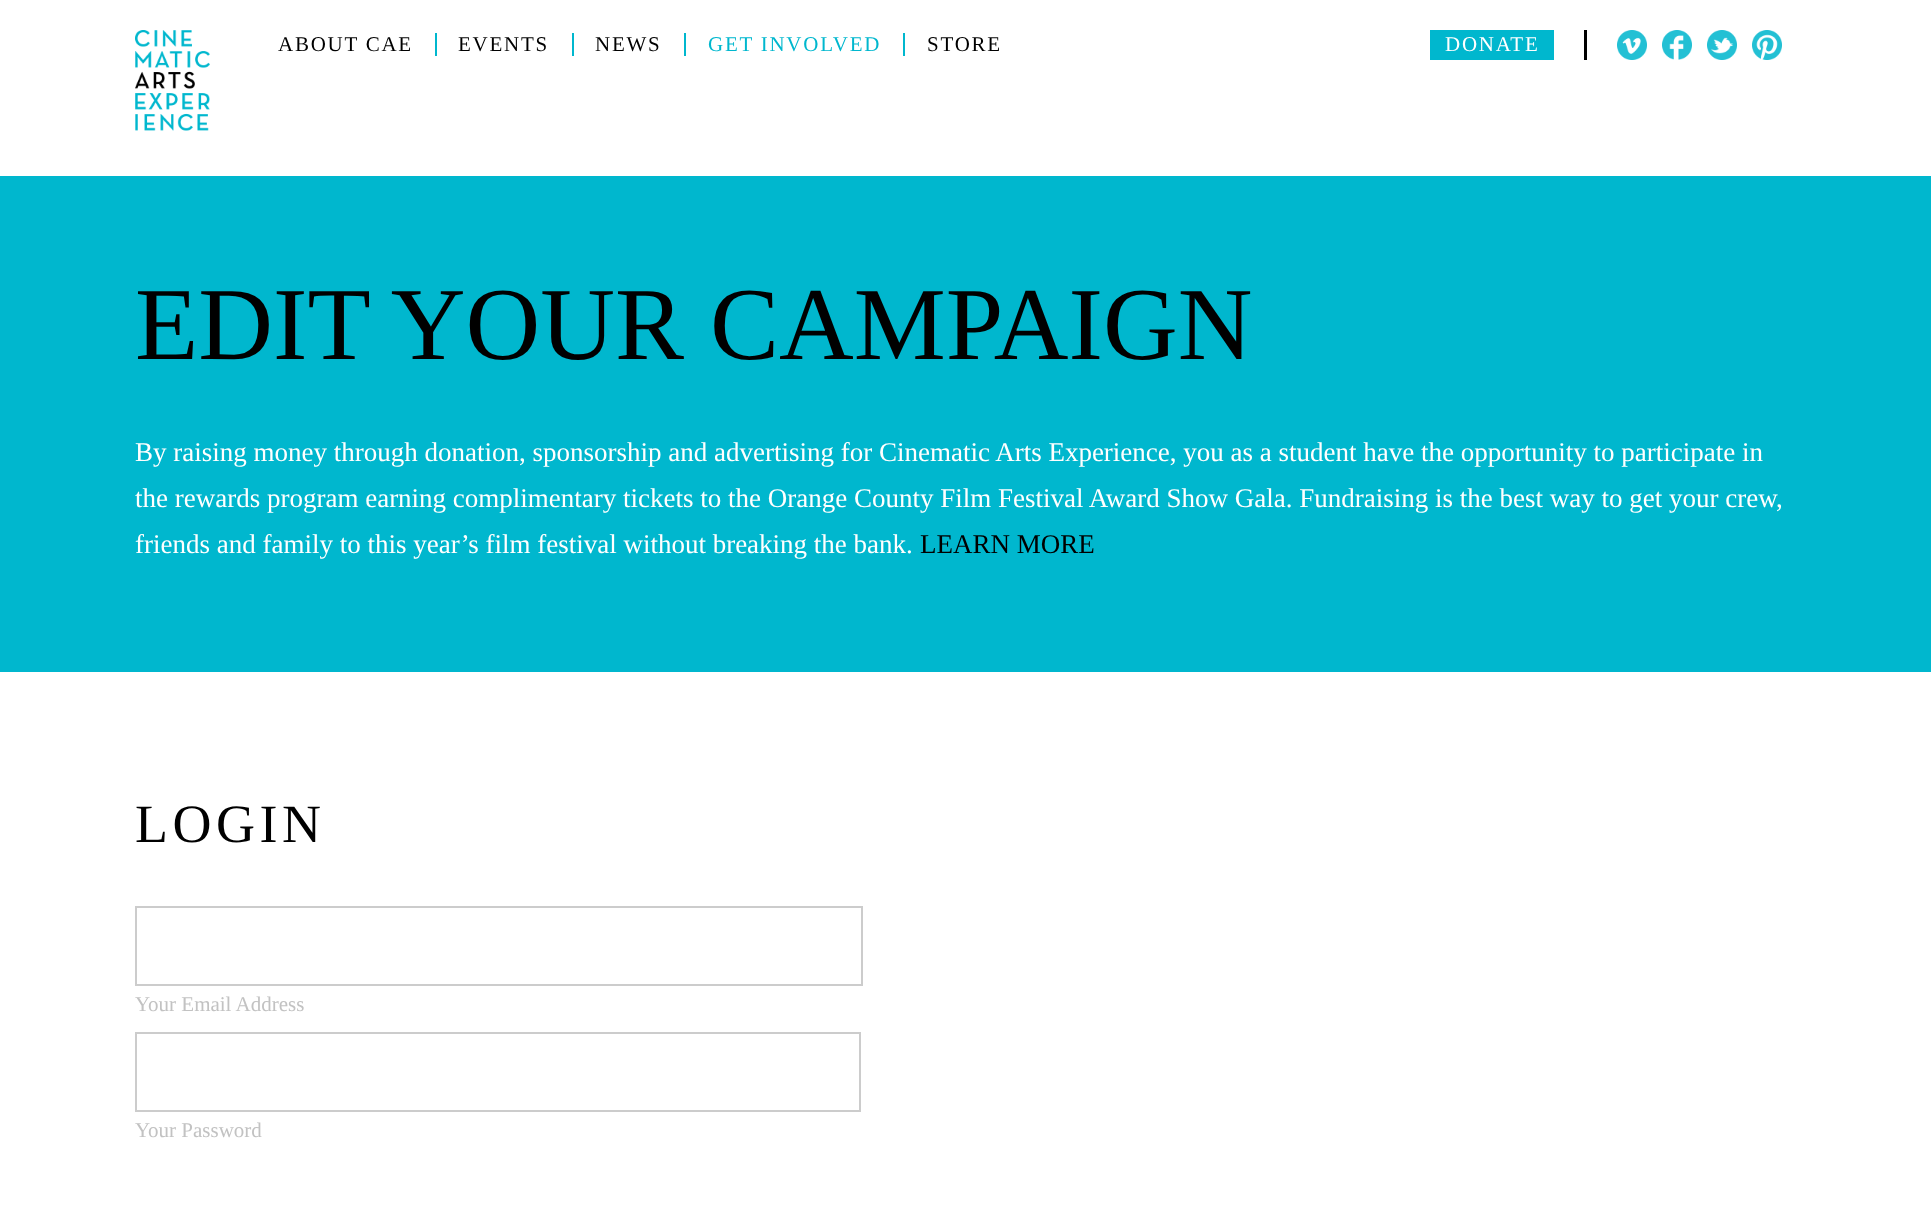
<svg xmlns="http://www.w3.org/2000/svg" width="1931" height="1212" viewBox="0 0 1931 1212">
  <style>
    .t1 { font: 21px Liberation Serif; letter-spacing: 1.75px; fill: #000; }
    .t2 { font: 21px Liberation Serif; letter-spacing: 1.75px; fill: #00b7ce; }
    .t3 { font: 21px Liberation Serif; letter-spacing: 1.75px; fill: #fff; }
    .t4 { font: 103.5px Liberation Serif; fill: #000; }
    .t5 { font: 27px Liberation Serif; fill: #fff; }
    .t6 { font: 27px Liberation Serif; fill: #000; }
    .t7 { font: 54px Liberation Serif; letter-spacing: 4.5px; fill: #000; }
    .t8 { font: 21px Liberation Serif; fill: #c2c2c2; }
  </style>
  <rect width="100%" height="100%" fill="#fff"/>
  <image x="135" y="30" width="75" height="101" href="images/1.png"/>
  <rect x="435" y="33" width="2" height="23" fill="#00b7ce"/>
  <text x="278" y="51" class="t1">ABOUT CAE</text>
  <rect x="572" y="33" width="2" height="23" fill="#00b7ce"/>
  <text x="458" y="51" class="t1">EVENTS</text>
  <rect x="684" y="33" width="2" height="23" fill="#00b7ce"/>
  <text x="595" y="51" class="t1">NEWS</text>
  <rect x="903" y="33" width="2" height="23" fill="#00b7ce"/>
  <text x="708" y="51" class="t2">GET INVOLVED</text>
  <text x="927" y="51" class="t1">STORE</text>
  <rect x="1584" y="30" width="3" height="30" fill="#000"/>
  <rect x="1430" y="30" width="124" height="30" fill="#00b7ce"/>
  <text x="1445" y="51" class="t3">DONATE</text>
  <image x="1617" y="30" width="30" height="30" href="images/2.png"/>
  <image x="1662" y="30" width="30" height="30" href="images/3.png"/>
  <image x="1707" y="30" width="30" height="30" href="images/4.png"/>
  <image x="1752" y="30" width="30" height="30" href="images/5.png"/>
  <rect x="0" y="176" width="1931" height="496" fill="#00b7ce"/>
  <text x="135" y="359" class="t4">EDIT YOUR CAMPAIGN</text>
  <text x="135" y="461" class="t5">By raising money through donation, sponsorship and advertising for Cinematic Arts Experience, you as a student have the opportunity to participate in</text>
  <text x="135" y="507" class="t5">the rewards program earning complimentary tickets to the Orange County Film Festival Award Show Gala. Fundraising is the best way to get your crew,</text>
  <text x="135" y="553" class="t5">friends and family to this year’s film festival without breaking the bank.</text>
  <text x="920" y="553" class="t6">LEARN MORE</text>
  <text x="135" y="842" class="t7">LOGIN</text>
  <rect x="136" y="907" width="726" height="78" fill="none" stroke="#ccc" stroke-width="2"/>
  <text x="135" y="1011" class="t8">Your Email Address</text>
  <rect x="136" y="1033" width="724" height="78" fill="none" stroke="#ccc" stroke-width="2"/>
  <text x="135" y="1137" class="t8">Your Password</text>
</svg>
